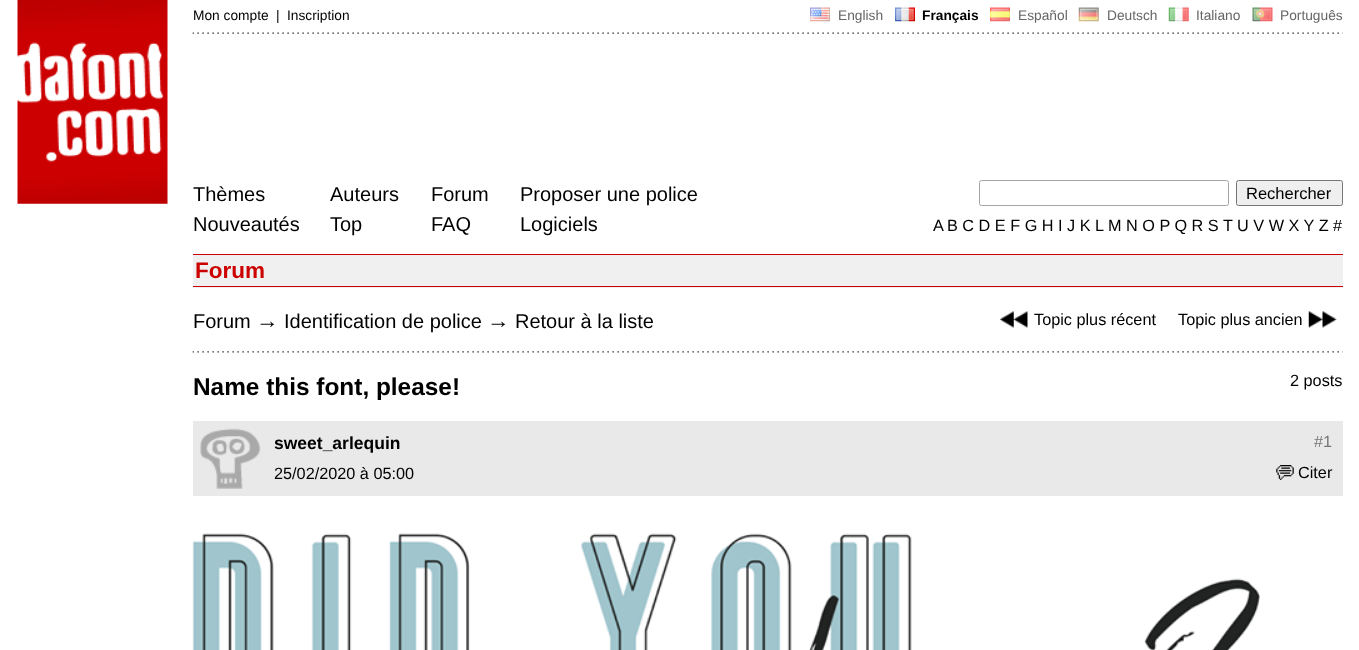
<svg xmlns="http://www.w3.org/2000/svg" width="1359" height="650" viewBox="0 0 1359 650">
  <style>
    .t1 { font: 13.75px Liberation Sans; fill: #000; }
    .t2 { font: 13.75px Liberation Sans; fill: #666; }
    .t3 { font: bold 13.75px Liberation Sans; fill: #000; }
    .t4 { font: 20px Liberation Sans; fill: #000; }
    .t5 { font: 16.5px Liberation Sans; fill: #000; }
    .t6 { font: 16.25px Liberation Sans; fill: #000; }
    .t7 { font: bold 22.5px Liberation Sans; fill: #c00; }
    .t8 { font: 22.5px Liberation Sans; fill: #000; }
    .t9 { font: bold 24.4px Liberation Sans; fill: #000; }
    .t10 { font: bold 17.5px Liberation Sans; fill: #000; }
    .t11 { font: 16.25px Liberation Sans; fill: #777; }
  </style>
  <rect width="100%" height="100%" fill="#fff"/>
  <image x="17" y="0" width="151" height="204" href="images/1.png"/>
  <text x="193" y="20" class="t1">Mon compte</text>
  <text x="276" y="20" class="t1">|</text>
  <text x="287" y="20" class="t1">Inscription</text>
  <image x="810" y="7" width="20" height="15" href="images/2.png"/>
  <text x="838" y="20" class="t2">English</text>
  <image x="895" y="7" width="20" height="15" href="images/3.png"/>
  <text x="922" y="20" class="t3">Français</text>
  <image x="990" y="7" width="20" height="15" href="images/4.png"/>
  <text x="1018" y="20" class="t2">Español</text>
  <image x="1078" y="7" width="21" height="15" href="images/5.png"/>
  <text x="1107" y="20" class="t2">Deutsch</text>
  <image x="1168" y="7" width="21" height="15" href="images/6.png"/>
  <text x="1196" y="20" class="t2">Italiano</text>
  <image x="1252" y="7" width="21" height="15" href="images/7.png"/>
  <text x="1280" y="20" class="t2">Português</text>
  <image x="192" y="32" width="1151" height="2" href="images/8.png"/>
  <text x="193" y="201" class="t4">Thèmes</text>
  <text x="193" y="231" class="t4">Nouveautés</text>
  <text x="330" y="201" class="t4">Auteurs</text>
  <text x="330" y="231" class="t4">Top</text>
  <text x="431" y="201" class="t4">Forum</text>
  <text x="431" y="231" class="t4">FAQ</text>
  <text x="520" y="201" class="t4">Proposer une police</text>
  <text x="520" y="231" class="t4">Logiciels</text>
  <rect x="979.5" y="180.5" width="249" height="25" rx="2" fill="none" stroke="#a4a4a4"/>
  <rect x="1236.5" y="180.5" width="106" height="25" rx="2" fill="#efefef" stroke="#767676"/>
  <text x="1246" y="199" class="t5">Rechercher</text>
  <text x="933" y="231" class="t6">A</text>
  <text x="947" y="231" class="t6">B C D E F G H I J K</text>
  <text x="1095" y="231" class="t6">L M N O P Q R S T U V W X Y Z #</text>
  <rect x="193" y="255" width="1150" height="33" fill="#f0f0f0"/>
  <rect x="193" y="254" width="1150" height="1" fill="#c00"/>
  <rect x="193" y="286" width="1150" height="1" fill="#c00"/>
  <text x="195" y="278" class="t7">Forum</text>
  <text x="193" y="328" class="t4">Forum</text>
  <text x="256" y="328" class="t8">→</text>
  <text x="284" y="328" class="t4">Identification de police</text>
  <text x="487" y="328" class="t8">→</text>
  <text x="515" y="328" class="t4">Retour à la liste</text>
  <image x="999" y="311" width="29" height="17" href="images/9.png"/>
  <text x="1034" y="325" class="t6">Topic plus récent</text>
  <text x="1178" y="325" class="t6">Topic plus ancien</text>
  <image x="1308" y="311" width="29" height="17" href="images/10.png"/>
  <image x="192" y="351" width="1151" height="2" href="images/11.png"/>
  <text x="193" y="395" class="t9">Name this font, please!</text>
  <text x="1290" y="386" class="t6">2 posts</text>
  <rect x="193" y="421" width="1150" height="75" fill="#e9e9e9"/>
  <image x="200" y="428" width="61" height="61" href="images/12.png"/>
  <text x="274" y="449" class="t10">sweet_arlequin</text>
  <text x="1314" y="447" class="t11">#1</text>
  <text x="274" y="479" class="t6">25/02/2020 à 05:00</text>
  <image x="1276" y="465" width="18" height="15" href="images/13.png"/>
  <text x="1298" y="478" class="t6">Citer</text>
  <image x="192" y="533" width="1068" height="117" href="images/14.png"/>
</svg>
